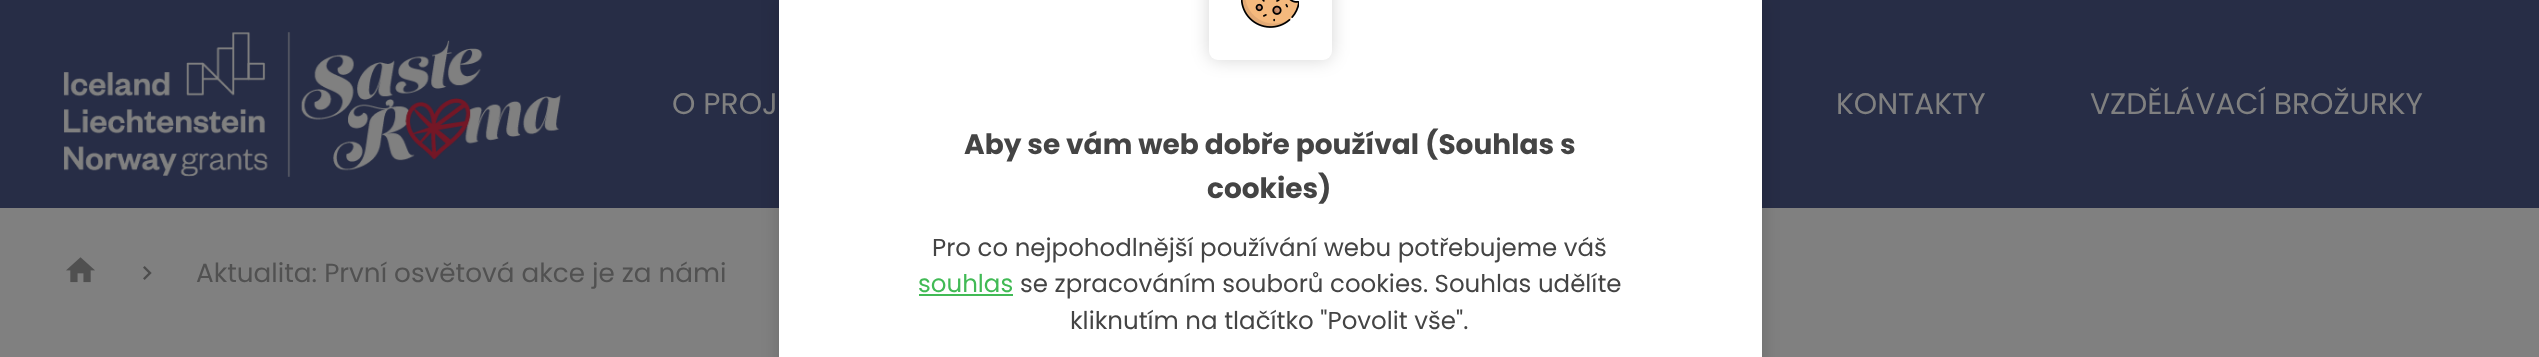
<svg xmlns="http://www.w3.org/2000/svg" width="2539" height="357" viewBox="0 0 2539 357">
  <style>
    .t1 { font: 29.75px Poppins; fill: #808080; }
    .t2 { font: 26.25px Poppins; fill: #515151; }
    .t3 { font: bold 28px Poppins; fill: #444; }
    .t4 { font: 24.5px Poppins; fill: #444; }
    .t5 { font: 24.5px Poppins; fill: #41ba55; }
  </style>
  <rect width="100%" height="100%" fill="#808080"/>
  <rect x="0" y="0" width="2539" height="208" fill="#272d46"/>
  <image x="63" y="32" width="499" height="145" href="images/1.png"/>
  <text x="672" y="114" class="t1">O PROJ</text>
  <text x="1836" y="114" class="t1">KONTAKTY</text>
  <text x="2090" y="114" class="t1">VZDĚLÁVACÍ BROŽURKY</text>
  <image x="66" y="257" width="29" height="26" href="images/2.png"/>
  <image x="143" y="266" width="9" height="14" href="images/3.png"/>
  <text x="196" y="282" class="t2">Aktualita: První osvětová akce je za námi</text>
  <rect x="779" y="0" width="983" height="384" fill="#00000029" filter="blur(9px)"/>
  <rect x="779" y="0" width="983" height="357" fill="#fff"/>
  <rect x="1209" y="-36" width="123" height="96" rx="9" fill="#00000029" filter="blur(9px)"/>
  <rect x="1209" y="-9" width="123" height="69" rx="9" fill="#fff"/>
  <image x="1241" y="0" width="58" height="28" href="images/4.png"/>
  <text x="964" y="154" class="t3">Aby se vám web dobře používal (Souhlas s</text>
  <text x="1207" y="198" class="t3">cookies)</text>
  <text x="932" y="256" class="t4">Pro co nejpohodlnější používání webu potřebujeme váš</text>
  <text x="918" y="292" class="t5">souhlas</text>
  <rect x="919" y="294" width="94" height="2" fill="#41ba55"/>
  <text x="1020" y="292" class="t4">se zpracováním souborů cookies. Souhlas udělíte</text>
  <text x="1070" y="329" class="t4">kliknutím na tlačítko "Povolit vše".</text>
</svg>
